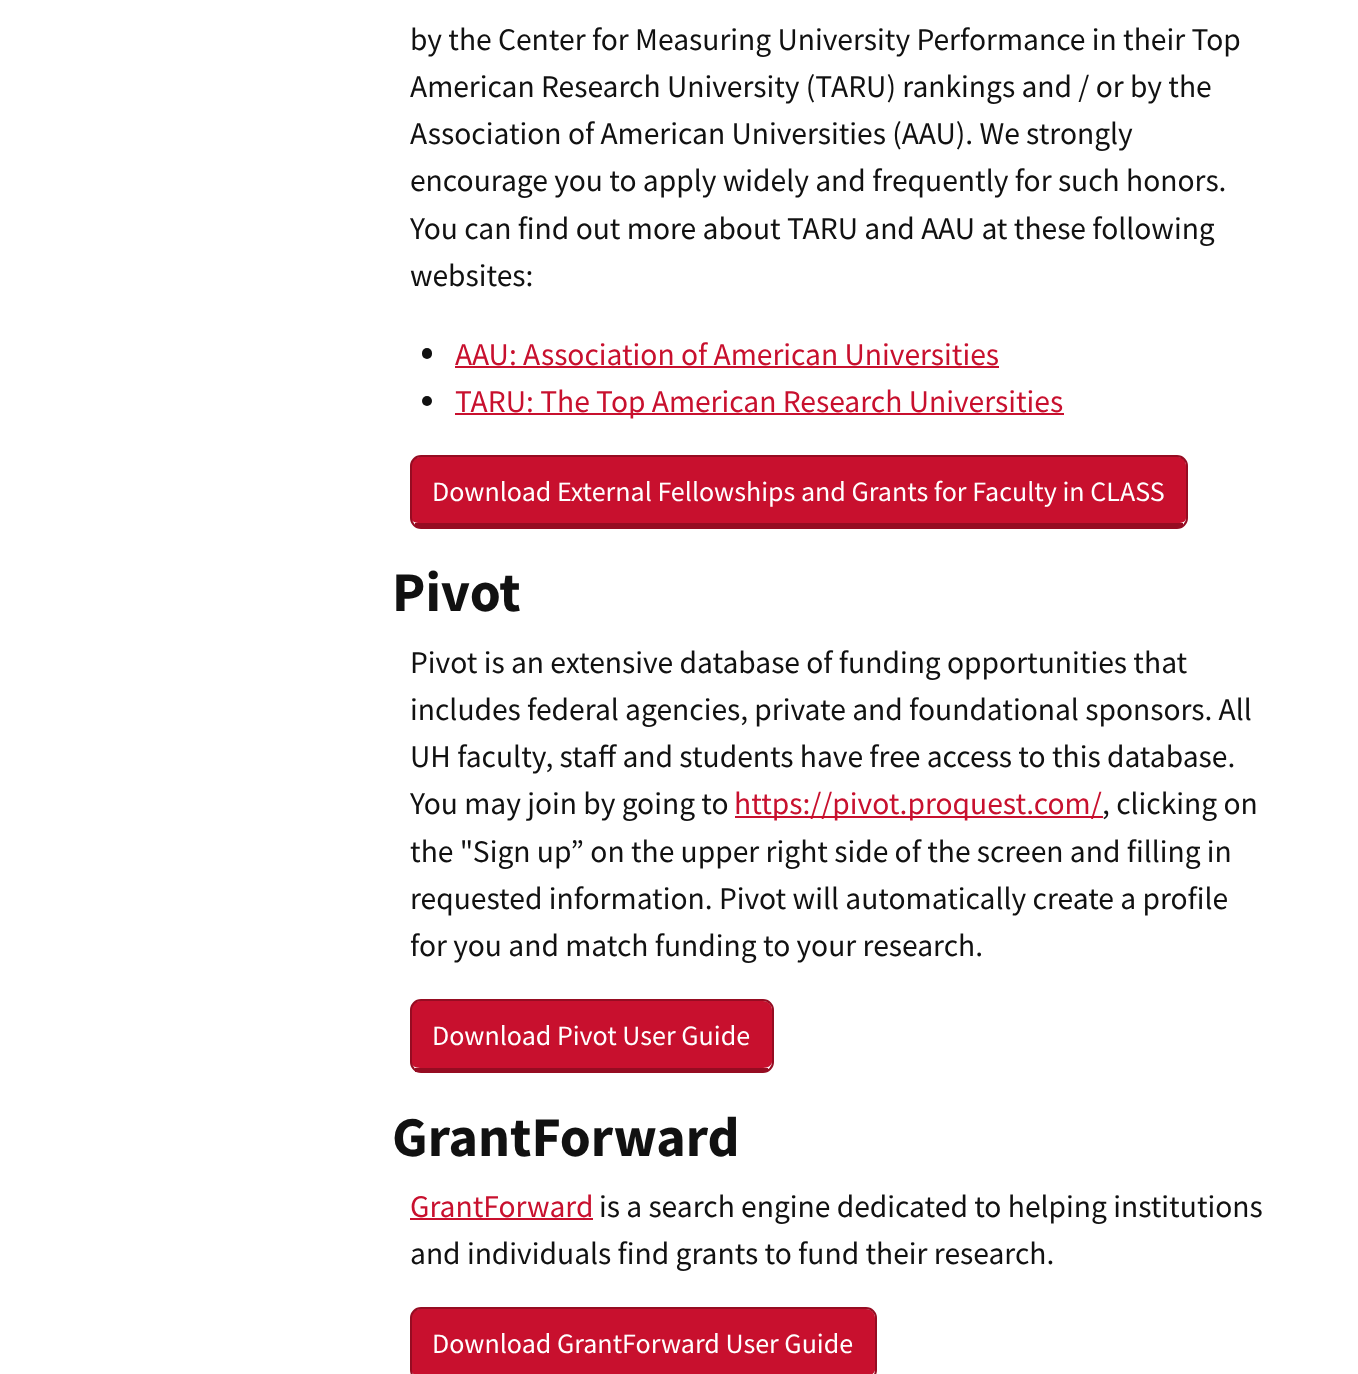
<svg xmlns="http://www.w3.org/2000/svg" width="1358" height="1374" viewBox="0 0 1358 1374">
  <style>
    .t1 { font: 31.5px Source Sans Pro; fill: #111; }
    .t2 { font: 31.5px Source Sans Pro; fill: #c8102e; }
    .t3 { font: 28px Source Sans Pro; fill: #fff; }
    .t4 { font: bold 56px Source Sans Pro; fill: #111; }
  </style>
  <rect width="100%" height="100%" fill="#fff"/>
  <text x="410" y="50" class="t1">by the Center for Measuring University Performance in their Top</text>
  <text x="410" y="97" class="t1">American Research University (TARU) rankings and / or by the</text>
  <text x="410" y="144" class="t1">Association of American Universities (AAU). We strongly</text>
  <text x="410" y="191" class="t1">encourage you to apply widely and frequently for such honors.</text>
  <text x="410" y="239" class="t1">You can find out more about TARU and AAU at these following</text>
  <text x="410" y="286" class="t1">websites:</text>
  <rect x="422" y="348" width="10" height="11" rx="5" fill="#111"/>
  <text x="455" y="365" class="t2">AAU: Association of American Universities</text>
  <rect x="455" y="366" width="544" height="2" fill="#c8102e"/>
  <circle cx="427" cy="401" r="5" fill="#111"/>
  <rect x="455" y="413" width="609" height="2" fill="#c8102e"/>
  <text x="455" y="412" class="t2">TARU: The Top American Research Universities</text>
  <path d="M420 457H1178C1183 457 1186 461 1186 466V518C1186 521 1183 523 1178 523H420C415 523 411 521 411 518V466C411 461 415 457 420 457Z" fill="#c8102e"/>
  <rect x="411" y="456" width="776" height="72" rx="10" fill="none" stroke="#960c22" stroke-width="2"/>
  <rect x="415" y="523" width="768" height="4" fill="#960c22"/>
  <text x="432" y="501" class="t3">Download External Fellowships and Grants for Faculty in CLASS</text>
  <text x="392" y="611" class="t4">Pivot</text>
  <text x="410" y="673" class="t1">Pivot is an extensive database of funding opportunities that</text>
  <text x="410" y="720" class="t1">includes federal agencies, private and foundational sponsors. All</text>
  <text x="410" y="767" class="t1">UH faculty, staff and students have free access to this database.</text>
  <text x="410" y="814" class="t1">You may join by going to</text>
  <rect x="735" y="816" width="368" height="2" fill="#c8102e"/>
  <text x="734" y="814" class="t2">https://pivot.proquest.com/</text>
  <text x="1102" y="814" class="t1">, clicking on</text>
  <text x="410" y="862" class="t1">the "Sign up” on the upper right side of the screen and filling in</text>
  <text x="410" y="909" class="t1">requested information. Pivot will automatically create a profile</text>
  <text x="410" y="956" class="t1">for you and match funding to your research.</text>
  <path d="M420 1001H763C768 1001 772 1005 772 1010V1062C772 1065 768 1068 763 1068H420C415 1068 411 1065 411 1062V1010C411 1005 415 1001 420 1001Z" fill="#c8102e"/>
  <rect x="411" y="1000" width="362" height="72" rx="10" fill="none" stroke="#960c22" stroke-width="2"/>
  <rect x="415" y="1068" width="353" height="4" fill="#960c22"/>
  <text x="432" y="1045" class="t3">Download Pivot User Guide</text>
  <text x="392" y="1156" class="t4">GrantForward</text>
  <text x="410" y="1217" class="t2">GrantForward</text>
  <rect x="410" y="1218" width="183" height="2" fill="#c8102e"/>
  <text x="599" y="1217" class="t1">is a search engine dedicated to helping institutions</text>
  <text x="410" y="1264" class="t1">and individuals find grants to fund their research.</text>
  <path d="M420 1309H866C871 1309 875 1313 875 1318V1370C875 1373 871 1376 866 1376H420C415 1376 411 1373 411 1370V1318C411 1313 415 1309 420 1309Z" fill="#c8102e"/>
  <rect x="411" y="1308" width="465" height="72" rx="10" fill="none" stroke="#960c22" stroke-width="2"/>
  <text x="432" y="1353" class="t3">Download GrantForward User Guide</text>
</svg>
